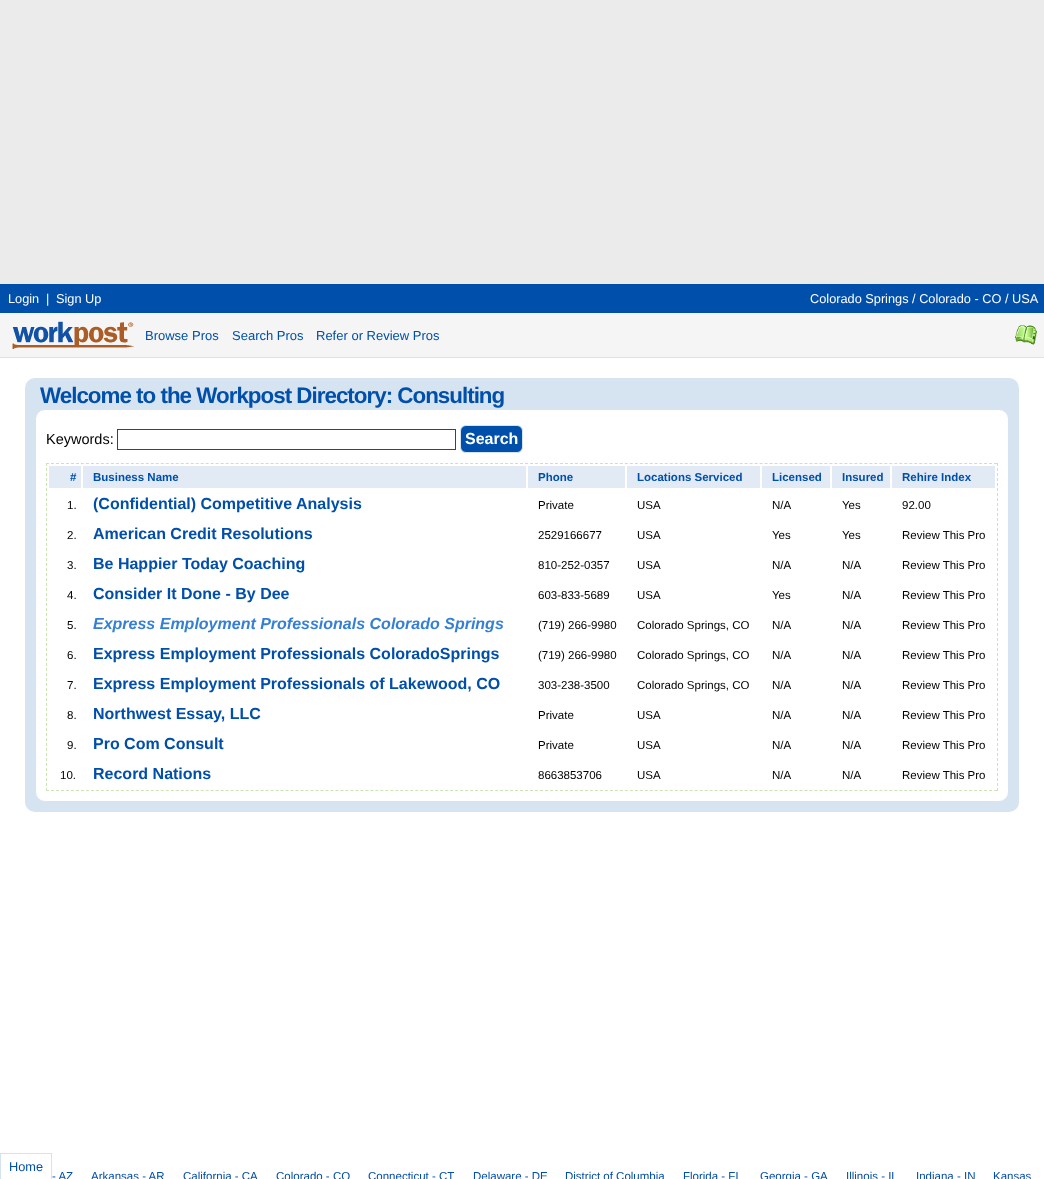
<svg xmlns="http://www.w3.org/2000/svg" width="1044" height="1179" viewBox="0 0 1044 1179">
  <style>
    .t1 { font: 12.75px Liberation Sans; fill: #fff; }
    .t2 { font: 13px Liberation Sans; fill: #004faa; }
    .t3 { font: bold 22.4px Liberation Sans; letter-spacing: -1px; fill: #004faa; }
    .t4 { font: 14.5px Liberation Sans; fill: #000; }
    .t5 { font: bold 16px Liberation Sans; fill: #fff; }
    .t6 { font: bold 11.5px Liberation Sans; fill: #004faa; }
    .t7 { font: 11.5px Liberation Sans; fill: #000; }
    .t8 { font: bold 16px Liberation Sans; fill: #004faa; }
    .t9 { font: italic bold 16px Liberation Sans; fill: #3580d5; }
    .t10 { font: 12.75px Liberation Sans; fill: #004faa; }
    .t11 { font: 11.5px Liberation Sans; fill: #004faa; }
  </style>
  <rect width="100%" height="100%" fill="#fff"/>
  <rect x="0" y="0" width="1044" height="284" fill="#ebebeb"/>
  <rect x="0" y="284" width="1044" height="29" fill="#004faa"/>
  <text x="8" y="303" class="t1">Login</text>
  <text x="46" y="303" class="t1">|</text>
  <text x="56" y="303" class="t1">Sign Up</text>
  <text x="810" y="303" class="t1">Colorado Springs / Colorado - CO / USA</text>
  <rect x="0" y="313" width="1044" height="44" fill="#f5f5f5"/>
  <rect x="0" y="357" width="1044" height="1" fill="#d6e3f1"/>
  <image x="12" y="321" width="122" height="28" href="images/1.png"/>
  <text x="145" y="340" class="t2">Browse Pros</text>
  <text x="232" y="340" class="t2">Search Pros</text>
  <text x="316" y="340" class="t2">Refer or Review Pros</text>
  <image x="1015" y="325" width="22" height="20" href="images/2.png"/>
  <rect x="30" y="383" width="984" height="424" rx="5" fill="#d6e3f1" stroke="#d6e3f1" stroke-width="10"/>
  <text x="40" y="403" class="t3">Welcome to the Workpost Directory: Consulting</text>
  <rect x="35.5" y="409.5" width="973" height="392" rx="9.5" fill="#fff" stroke="#d6e3f1"/>
  <text x="46" y="444" class="t4">Keywords:</text>
  <rect x="117.5" y="429.5" width="338" height="20" fill="none" stroke="#004faa"/>
  <rect x="460.5" y="425.5" width="62" height="27" rx="5.5" fill="#004faa" stroke="#d6e3f1"/>
  <text x="465" y="444" class="t5">Search</text>
  <path d="M46 463.5H998" fill="none" stroke="#cae5b3" stroke-dasharray="3 1.99"/>
  <path d="M997.5 463V791" fill="none" stroke="#cae5b3" stroke-dasharray="3 2"/>
  <path d="M46 790.5H998" fill="none" stroke="#cae5b3" stroke-dasharray="3 1.99"/>
  <path d="M46.5 463V791" fill="none" stroke="#cae5b3" stroke-dasharray="3 2"/>
  <rect x="49" y="466" width="32" height="22" fill="#e1eaf5"/>
  <text x="70" y="481" class="t6">#</text>
  <rect x="83" y="466" width="443" height="22" fill="#e1eaf5"/>
  <text x="93" y="481" class="t6">Business Name</text>
  <rect x="528" y="466" width="97" height="22" fill="#e1eaf5"/>
  <text x="538" y="481" class="t6">Phone</text>
  <rect x="627" y="466" width="133" height="22" fill="#e1eaf5"/>
  <text x="637" y="481" class="t6">Locations Serviced</text>
  <rect x="762" y="466" width="68" height="22" fill="#e1eaf5"/>
  <text x="772" y="481" class="t6">Licensed</text>
  <rect x="832" y="466" width="58" height="22" fill="#e1eaf5"/>
  <text x="842" y="481" class="t6">Insured</text>
  <rect x="892" y="466" width="103" height="22" fill="#e1eaf5"/>
  <text x="902" y="481" class="t6">Rehire Index</text>
  <text x="67" y="509" class="t7">1.</text>
  <text x="93" y="509" class="t8">(Confidential) Competitive Analysis</text>
  <text x="538" y="509" class="t7">Private</text>
  <text x="637" y="509" class="t7">USA</text>
  <text x="772" y="509" class="t7">N/A</text>
  <text x="842" y="509" class="t7">Yes</text>
  <text x="902" y="509" class="t7">92.00</text>
  <text x="67" y="539" class="t7">2.</text>
  <text x="93" y="539" class="t8">American Credit Resolutions</text>
  <text x="538" y="539" class="t7">2529166677</text>
  <text x="637" y="539" class="t7">USA</text>
  <text x="772" y="539" class="t7">Yes</text>
  <text x="842" y="539" class="t7">Yes</text>
  <text x="902" y="539" class="t7">Review This Pro</text>
  <text x="67" y="569" class="t7">3.</text>
  <text x="93" y="569" class="t8">Be Happier Today Coaching</text>
  <text x="538" y="569" class="t7">810-252-0357</text>
  <text x="637" y="569" class="t7">USA</text>
  <text x="772" y="569" class="t7">N/A</text>
  <text x="842" y="569" class="t7">N/A</text>
  <text x="902" y="569" class="t7">Review This Pro</text>
  <text x="67" y="599" class="t7">4.</text>
  <text x="93" y="599" class="t8">Consider It Done - By Dee</text>
  <text x="538" y="599" class="t7">603-833-5689</text>
  <text x="637" y="599" class="t7">USA</text>
  <text x="772" y="599" class="t7">Yes</text>
  <text x="842" y="599" class="t7">N/A</text>
  <text x="902" y="599" class="t7">Review This Pro</text>
  <text x="67" y="629" class="t7">5.</text>
  <text x="93" y="629" class="t9">Express Employment Professionals Colorado Springs</text>
  <text x="538" y="629" class="t7">(719) 266-9980</text>
  <text x="637" y="629" class="t7">Colorado Springs, CO</text>
  <text x="772" y="629" class="t7">N/A</text>
  <text x="842" y="629" class="t7">N/A</text>
  <text x="902" y="629" class="t7">Review This Pro</text>
  <text x="67" y="659" class="t7">6.</text>
  <text x="93" y="659" class="t8">Express Employment Professionals ColoradoSprings</text>
  <text x="538" y="659" class="t7">(719) 266-9980</text>
  <text x="637" y="659" class="t7">Colorado Springs, CO</text>
  <text x="772" y="659" class="t7">N/A</text>
  <text x="842" y="659" class="t7">N/A</text>
  <text x="902" y="659" class="t7">Review This Pro</text>
  <text x="67" y="689" class="t7">7.</text>
  <text x="93" y="689" class="t8">Express Employment Professionals of Lakewood, CO</text>
  <text x="538" y="689" class="t7">303-238-3500</text>
  <text x="637" y="689" class="t7">Colorado Springs, CO</text>
  <text x="772" y="689" class="t7">N/A</text>
  <text x="842" y="689" class="t7">N/A</text>
  <text x="902" y="689" class="t7">Review This Pro</text>
  <text x="67" y="719" class="t7">8.</text>
  <text x="93" y="719" class="t8">Northwest Essay, LLC</text>
  <text x="538" y="719" class="t7">Private</text>
  <text x="637" y="719" class="t7">USA</text>
  <text x="772" y="719" class="t7">N/A</text>
  <text x="842" y="719" class="t7">N/A</text>
  <text x="902" y="719" class="t7">Review This Pro</text>
  <text x="67" y="749" class="t7">9.</text>
  <text x="93" y="749" class="t8">Pro Com Consult</text>
  <text x="538" y="749" class="t7">Private</text>
  <text x="637" y="749" class="t7">USA</text>
  <text x="772" y="749" class="t7">N/A</text>
  <text x="842" y="749" class="t7">N/A</text>
  <text x="902" y="749" class="t7">Review This Pro</text>
  <text x="60" y="779" class="t7">10.</text>
  <text x="93" y="779" class="t8">Record Nations</text>
  <text x="538" y="779" class="t7">8663853706</text>
  <text x="637" y="779" class="t7">USA</text>
  <text x="772" y="779" class="t7">N/A</text>
  <text x="842" y="779" class="t7">N/A</text>
  <text x="902" y="779" class="t7">Review This Pro</text>
  <rect x="0" y="1153" width="52" height="1" fill="#d6e3f1"/>
  <rect x="51" y="1153" width="1" height="26" fill="#d6e3f1"/>
  <rect x="0" y="1153" width="1" height="26" fill="#d6e3f1"/>
  <text x="9" y="1171" class="t10">Home</text>
  <text x="52" y="1180" class="t11">- AZ</text>
  <text x="91" y="1180" class="t11">Arkansas - AR</text>
  <text x="183" y="1180" class="t11">California - CA</text>
  <text x="276" y="1180" class="t11">Colorado - CO</text>
  <text x="368" y="1180" class="t11">Connecticut - CT</text>
  <text x="473" y="1180" class="t11">Delaware - DE</text>
  <text x="565" y="1180" class="t11">District of Columbia</text>
  <text x="683" y="1180" class="t11">Florida - FL</text>
  <text x="760" y="1180" class="t11">Georgia - GA</text>
  <text x="846" y="1180" class="t11">Illinois - IL</text>
  <text x="916" y="1180" class="t11">Indiana - IN</text>
  <text x="993" y="1180" class="t11">Kansas</text>
</svg>
